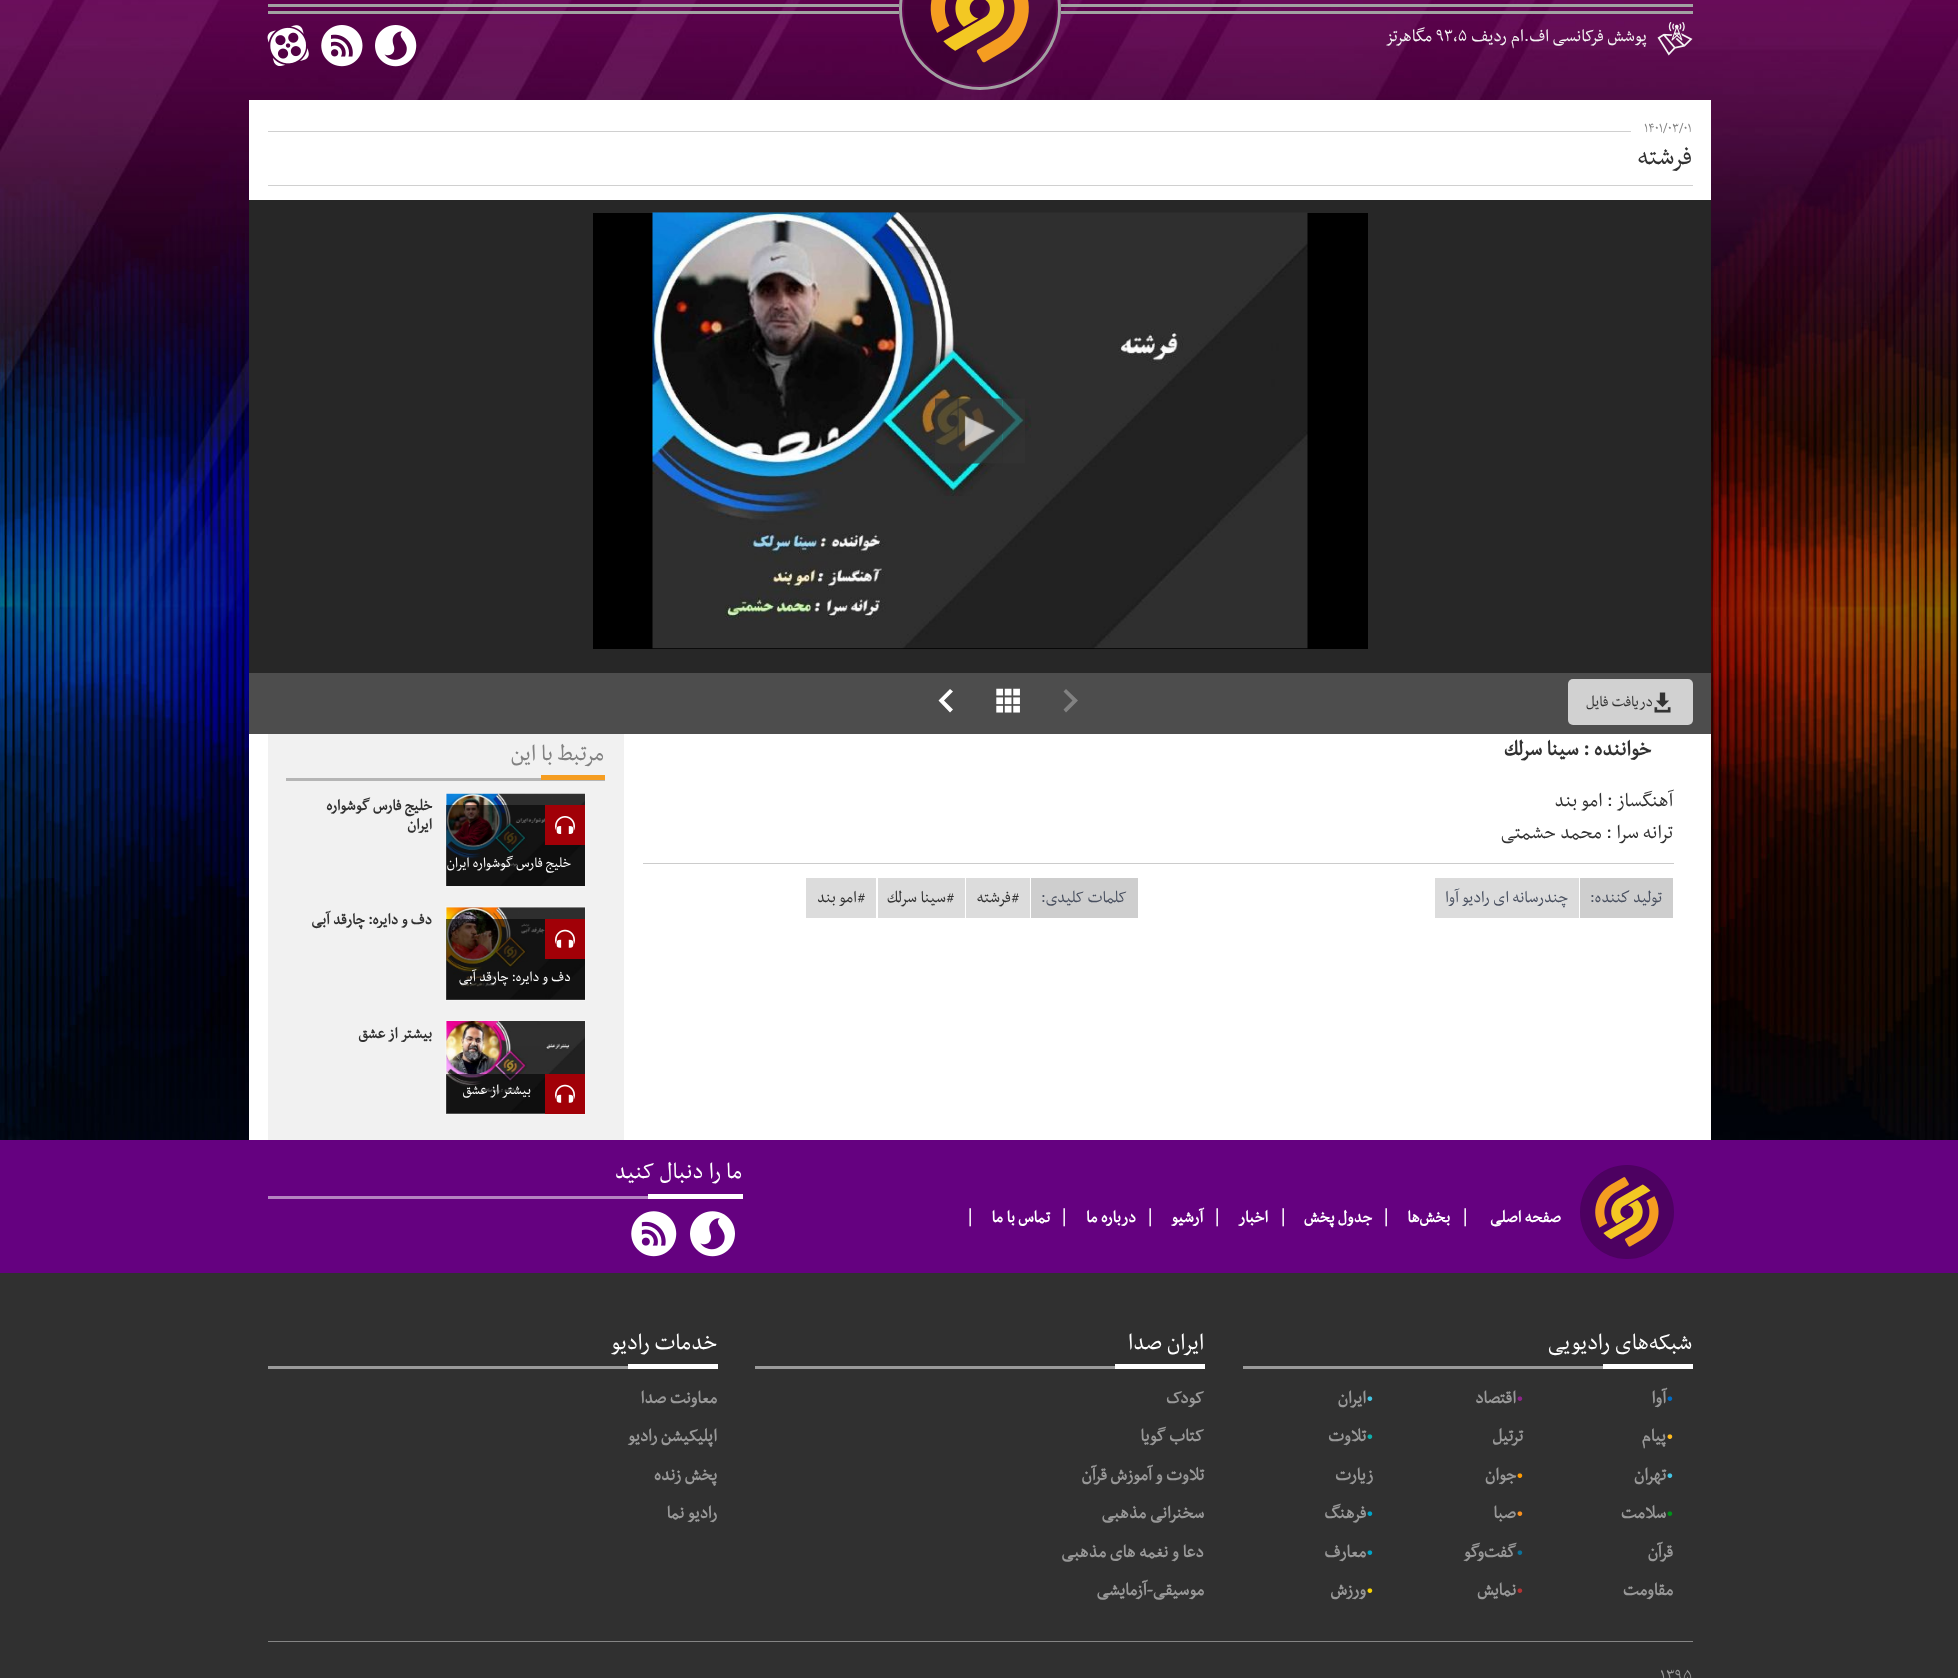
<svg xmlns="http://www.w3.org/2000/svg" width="1958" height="1678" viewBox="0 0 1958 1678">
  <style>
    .t1 { font: 20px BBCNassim; direction: rtl; fill: #f5f5f5; }
    .t2 { font: 20px BBCNassim; fill: #f5f5f5; }
    .t3 { font: 15px BBCNassim; fill: #818181; }
    .t4 { font: 30px BBCNassim; direction: rtl; fill: #313131; }
    .t5 { font: 17.5px BBCNassim; direction: rtl; fill: #313131; }
    .t6 { font: bold 23.75px BBCNassim; direction: rtl; fill: #313131; }
    .t7 { font: 22.5px BBCNassim; direction: rtl; fill: #313131; }
    .t8 { font: 18.75px BBCNassim; direction: rtl; fill: #484f5f; }
    .t9 { font: 18.75px BBCNassim; direction: rtl; fill: #313131; }
    .t10 { font: 26.25px BBCNassim; direction: rtl; fill: #818181; }
    .t11 { font: bold 17.5px BBCNassim; direction: rtl; fill: #313131; }
    .t12 { font: 16.25px BBCNassim; direction: rtl; fill: #fff; }
    .t13 { font: 26.25px BBCNassim; direction: rtl; fill: #fff; }
    .t14 { font: bold 18.75px BBCNassim; direction: rtl; fill: #fff; }
    .t15 { font: bold 20px Liberation Serif; fill: #fff; }
    .t16 { font: 20px BBCNassim; fill: #006cc7; }
    .t17 { font: bold 20px BBCNassim; direction: rtl; fill: #989898; }
    .t18 { font: 20px BBCNassim; fill: #8d258a; }
    .t19 { font: 20px BBCNassim; fill: #44c4e3; }
    .t20 { font: 20px BBCNassim; fill: #ffbb1e; }
    .t21 { font: 20px BBCNassim; fill: #0eaeaa; }
    .t22 { font: 20px BBCNassim; fill: #ff9b02; }
    .t23 { font: 20px BBCNassim; fill: #00911a; }
    .t24 { font: 20px BBCNassim; fill: #f78f1e; }
    .t25 { font: 20px BBCNassim; fill: #00a4c7; }
    .t26 { font: 20px BBCNassim; fill: #0c729a; }
    .t27 { font: 20px BBCNassim; fill: #b23434; }
    .t28 { font: 20px BBCNassim; fill: #f6d104; }
    .t29 { font: 20px BBCNassim; fill: #989898; }
  </style>
  <defs>
    <clipPath id="clip1"><rect x="463" y="1074" width="82" height="29"/></clipPath>
  </defs>
  <rect width="100%" height="100%" fill="#fff"/>
  <image x="0" y="0" width="1958" height="1140" href="images/1.png"/>
  <rect x="1061" y="4" width="632" height="3" fill="#a2a2a2"/>
  <rect x="1061" y="11" width="632" height="3" fill="#a2a2a2"/>
  <circle cx="980" cy="9" r="79.5" fill="none" stroke="#a2a2a2fc" stroke-width="3"/>
  <circle cx="980" cy="9" r="76" fill="#0000003b"/>
  <image x="930" y="0" width="99" height="63" href="images/2.png"/>
  <rect x="268" y="4" width="631" height="3" fill="#a2a2a2"/>
  <rect x="268" y="11" width="631" height="3" fill="#a2a2a2"/>
  <image x="1657" y="22" width="36" height="34" href="images/3.png"/>
  <text x="1647" y="41" class="t1">پوشش فرکانسی</text>
  <text x="1549" y="41" class="t1">اف.ام رديف</text>
  <text x="1436" y="41" class="t2">۹۳,۵</text>
  <text x="1432" y="41" class="t1">مگاهرتز</text>
  <image x="375" y="25" width="42" height="42" href="images/4.png"/>
  <image x="321" y="25" width="42" height="42" href="images/5.png"/>
  <image x="267" y="25" width="42" height="41" href="images/6.png"/>
  <rect x="249" y="100" width="1462" height="1040" fill="#fff"/>
  <text x="1644" y="132" class="t3">۱۴۰۱/۰۳/۰۱</text>
  <rect x="268" y="131" width="1363" height="1" fill="#d0d0d0"/>
  <text x="1692" y="164" class="t4">فرشته</text>
  <rect x="268" y="185" width="1425" height="1" fill="#d0d0d0"/>
  <rect x="249" y="200" width="1462" height="473" fill="#272727"/>
  <rect x="593" y="213" width="775" height="436" fill="#000"/>
  <image x="652" y="212" width="656" height="437" href="images/7.png"/>
  <image x="935" y="398" width="90" height="66" href="images/8.png"/>
  <image x="964" y="415" width="31" height="32" href="images/9.png"/>
  <rect x="249" y="673" width="1462" height="61" fill="#4d4d4d"/>
  <rect x="1568" y="679" width="125" height="46" rx="5" fill="#d1d1d1"/>
  <image x="1654" y="692" width="17" height="21" href="images/10.png"/>
  <text x="1653" y="706" class="t5">دریافت فایل</text>
  <path d="M1066 689L1063.5 691.5L1072.5 700.5L1063.5 709.5L1066 712.5L1078 700.5Z" fill="#828282"/>
  <image x="996" y="688" width="24" height="25" href="images/11.png"/>
  <path d="M950 712.5L953 709.5L944 700.5L953 691.5L950 689L938.5 700.5Z" fill="#fff"/>
  <text x="1651" y="755" class="t6">خواننده : سینا سرلك</text>
  <text x="1673" y="806" class="t7">آهنگساز : امو بند</text>
  <text x="1673" y="838" class="t7">ترانه سرا : محمد حشمتی</text>
  <rect x="643" y="863" width="1031" height="1" fill="#ccc"/>
  <rect x="1580" y="878" width="93" height="40" fill="#cecece"/>
  <text x="1662" y="902" class="t8">تولید كننده:</text>
  <rect x="1435" y="878" width="144" height="40" fill="#dcdcdc"/>
  <text x="1568" y="902" class="t8">چندرسانه ای رادیو آوا</text>
  <rect x="1031" y="878" width="107" height="40" fill="#cecece"/>
  <text x="1127" y="902" class="t8">کلمات کلیدی:</text>
  <rect x="966" y="878" width="64" height="40" fill="#dcdcdc"/>
  <text x="1020" y="902" class="t9">#فرشته</text>
  <rect x="878" y="878" width="87" height="40" fill="#dcdcdc"/>
  <text x="955" y="902" class="t9">#سینا سرلك</text>
  <rect x="806" y="878" width="70" height="40" fill="#dcdcdc"/>
  <text x="866" y="902" class="t9">#امو بند</text>
  <rect x="268" y="734" width="356" height="406" fill="#f1f1f1"/>
  <rect x="286" y="778" width="319" height="3" fill="#b5b5b5"/>
  <text x="604" y="760" class="t10">مرتبط با این</text>
  <rect x="541" y="775" width="64" height="5" fill="#f59d21"/>
  <text x="432" y="810" class="t11">خلیج فارس گوشواره</text>
  <text x="432" y="829" class="t11">ایران</text>
  <rect x="445.5" y="793.5" width="140" height="94" fill="none" stroke="#f4f4f4"/>
  <image x="446" y="793" width="139" height="93" href="images/12.png"/>
  <rect x="446" y="805" width="139" height="81" fill="#00000096"/>
  <rect x="545" y="805" width="40" height="40" fill="#a10007"/>
  <image x="555" y="816" width="20" height="18" href="images/13.png"/>
  <text x="571" y="867" class="t12">خلیج فارس گوشواره ایران</text>
  <text x="432" y="924" class="t11">دف و دایره: چارقد آبی</text>
  <rect x="445.5" y="906.5" width="140" height="94" fill="none" stroke="#f4f4f4"/>
  <image x="446" y="907" width="139" height="93" href="images/14.png"/>
  <rect x="446" y="919" width="139" height="81" fill="#00000096"/>
  <rect x="545" y="919" width="40" height="40" fill="#a10007"/>
  <image x="555" y="929" width="20" height="19" href="images/15.png"/>
  <text x="571" y="981" class="t12">دف و دایره: چارقد آبی</text>
  <text x="432" y="1038" class="t11">بیشتر از عشق</text>
  <rect x="445.5" y="1020.5" width="140" height="94" fill="none" stroke="#f4f4f4"/>
  <image x="446" y="1021" width="139" height="93" href="images/16.png"/>
  <rect x="446" y="1074" width="99" height="40" fill="#00000096"/>
  <rect x="545" y="1074" width="40" height="40" fill="#a10007"/>
  <image x="555" y="1084" width="20" height="19" href="images/15.png"/>
  <g clip-path="url(#clip1)">
    <text x="531" y="1094" class="t12">بیشتر از عشق</text>
  </g>
  <rect x="0" y="1140" width="1958" height="133" fill="#650180"/>
  <rect x="268" y="1196" width="380" height="3" fill="#b483c1"/>
  <text x="742" y="1178" class="t13">ما را دنبال کنید</text>
  <rect x="648" y="1194" width="95" height="5" fill="#fff"/>
  <image x="690" y="1211" width="45" height="46" href="images/17.png"/>
  <image x="631" y="1211" width="46" height="46" href="images/18.png"/>
  <circle cx="1627" cy="1212" r="47" fill="#4d0161"/>
  <image x="1595" y="1177" width="64" height="70" href="images/19.png"/>
  <text x="1561" y="1222" class="t14">صفحه اصلی</text>
  <text x="1463" y="1222" class="t15">|</text>
  <text x="1450" y="1222" class="t14">بخش‌ها</text>
  <text x="1384" y="1222" class="t15">|</text>
  <text x="1372" y="1222" class="t14">جدول پخش</text>
  <text x="1281" y="1222" class="t15">|</text>
  <text x="1268" y="1222" class="t14">اخبار</text>
  <text x="1215" y="1222" class="t15">|</text>
  <text x="1203" y="1222" class="t14">آرشیو</text>
  <text x="1148" y="1222" class="t15">|</text>
  <text x="1136" y="1222" class="t14">درباره ما</text>
  <text x="1062" y="1222" class="t15">|</text>
  <text x="1050" y="1222" class="t14">تماس با ما</text>
  <text x="968" y="1222" class="t15">|</text>
  <rect x="0" y="1273" width="1958" height="405" fill="#303030"/>
  <rect x="1243" y="1366" width="360" height="3" fill="#9a9a9a"/>
  <text x="1692" y="1349" class="t13">شبکه‌های رادیویی</text>
  <rect x="1603" y="1364" width="90" height="5" fill="#fff"/>
  <text x="1666" y="1403" class="t16">•</text>
  <text x="1666" y="1403" class="t17">آوا</text>
  <text x="1516" y="1403" class="t18">•</text>
  <text x="1516" y="1403" class="t17">اقتصاد</text>
  <text x="1366" y="1403" class="t19">•</text>
  <text x="1366" y="1403" class="t17">ایران</text>
  <text x="1666" y="1441" class="t20">•</text>
  <text x="1666" y="1441" class="t17">پیام</text>
  <text x="1523" y="1441" class="t17">ترتیل</text>
  <text x="1366" y="1441" class="t21">•</text>
  <text x="1366" y="1441" class="t17">تلاوت</text>
  <text x="1666" y="1480" class="t19">•</text>
  <text x="1666" y="1480" class="t17">تهران</text>
  <text x="1516" y="1480" class="t22">•</text>
  <text x="1516" y="1480" class="t17">جوان</text>
  <text x="1373" y="1480" class="t17">زیارت</text>
  <text x="1666" y="1518" class="t23">•</text>
  <text x="1666" y="1518" class="t17">سلامت</text>
  <text x="1516" y="1518" class="t24">•</text>
  <text x="1516" y="1518" class="t17">صبا</text>
  <text x="1366" y="1518" class="t25">•</text>
  <text x="1366" y="1518" class="t17">فرهنگ</text>
  <text x="1673" y="1557" class="t17">قرآن</text>
  <text x="1516" y="1557" class="t26">•</text>
  <text x="1516" y="1557" class="t17">گفت‌وگو</text>
  <text x="1366" y="1557" class="t25">•</text>
  <text x="1366" y="1557" class="t17">معارف</text>
  <text x="1673" y="1595" class="t17">مقاومت</text>
  <text x="1516" y="1595" class="t27">•</text>
  <text x="1516" y="1595" class="t17">نمایش</text>
  <text x="1366" y="1595" class="t28">•</text>
  <text x="1366" y="1595" class="t17">ورزش</text>
  <rect x="755" y="1366" width="360" height="3" fill="#9a9a9a"/>
  <text x="1204" y="1349" class="t13">ایران صدا</text>
  <rect x="1115" y="1364" width="90" height="5" fill="#fff"/>
  <text x="1204" y="1403" class="t17">کودک</text>
  <text x="1204" y="1441" class="t17">کتاب گویا</text>
  <text x="1204" y="1480" class="t17">تلاوت و آموزش قرآن</text>
  <text x="1204" y="1518" class="t17">سخنرانی مذهبی</text>
  <text x="1204" y="1557" class="t17">دعا و نغمه های مذهبی</text>
  <text x="1204" y="1595" class="t17">موسیقی-آزمایشی</text>
  <rect x="268" y="1366" width="360" height="3" fill="#9a9a9a"/>
  <text x="717" y="1349" class="t13">خدمات رادیو</text>
  <rect x="628" y="1364" width="90" height="5" fill="#fff"/>
  <text x="717" y="1403" class="t17">معاونت صدا</text>
  <text x="717" y="1441" class="t17">اپلیکیشن رادیو</text>
  <text x="717" y="1480" class="t17">پخش زنده</text>
  <text x="717" y="1518" class="t17">رادیو نما</text>
  <rect x="268" y="1641" width="1425" height="1" fill="#858585"/>
  <text x="1660" y="1681" class="t29">۱۳۹۵</text>
</svg>
